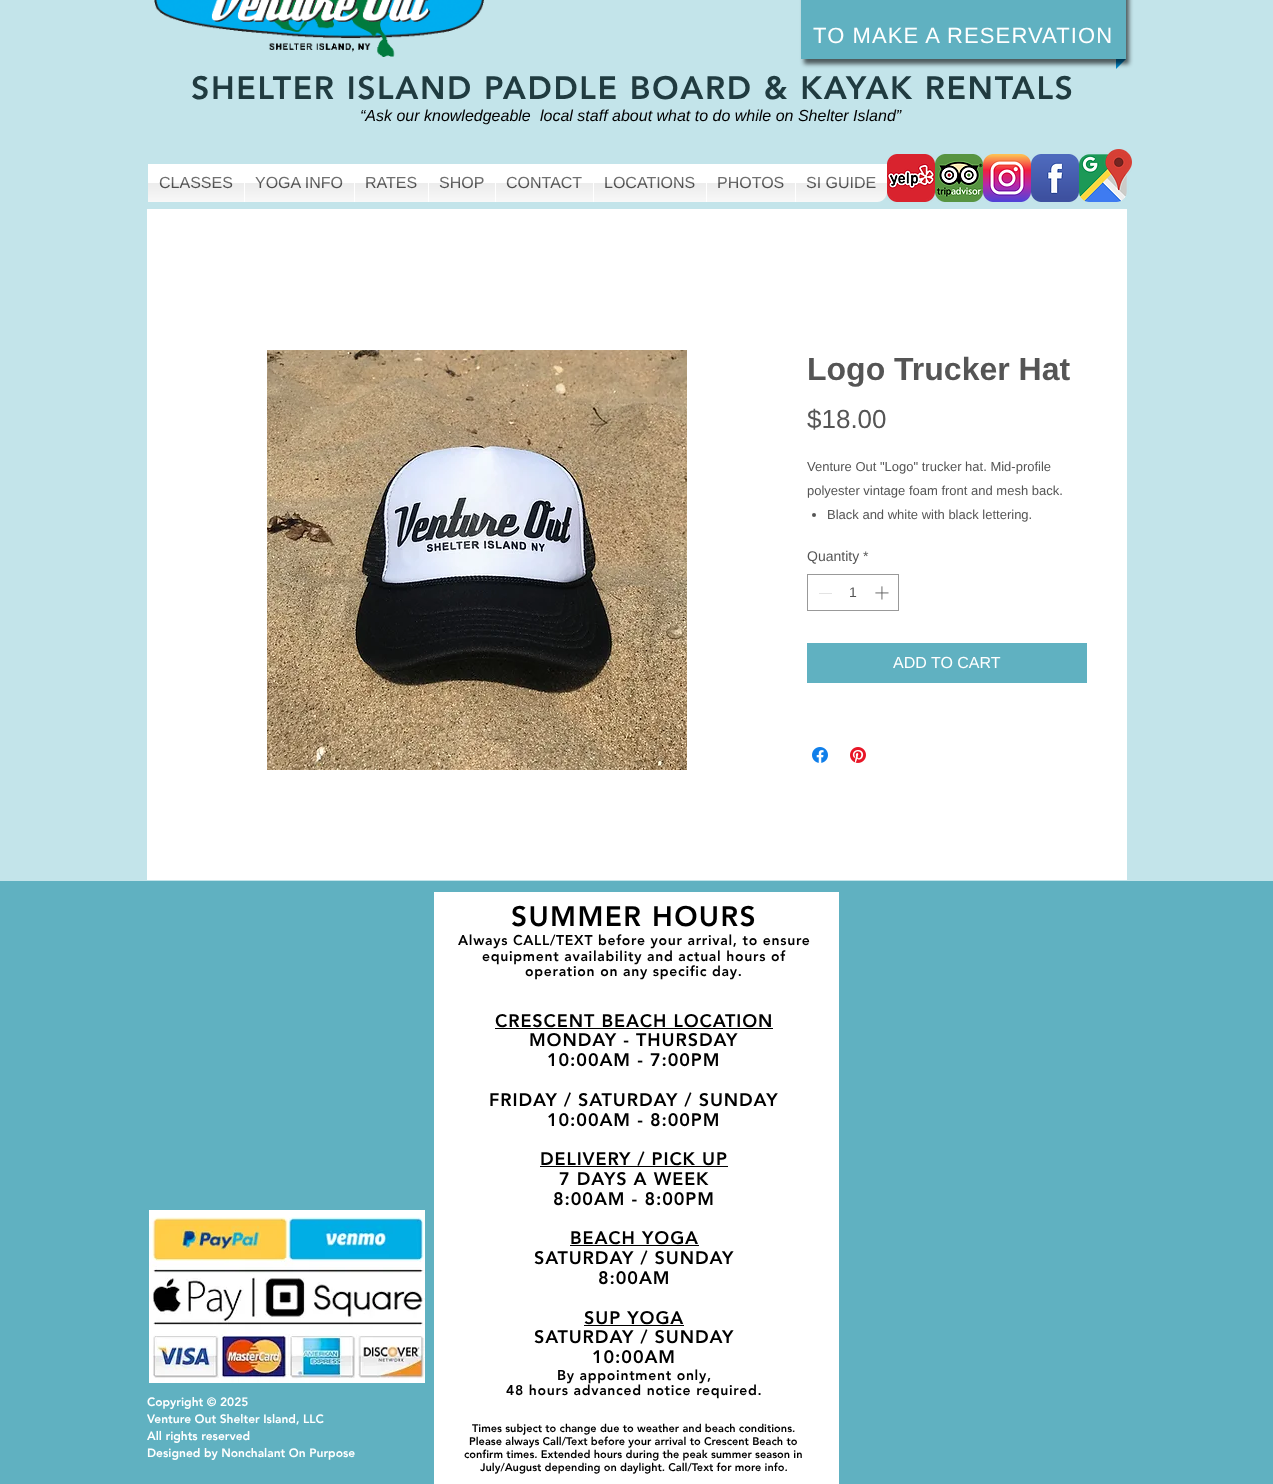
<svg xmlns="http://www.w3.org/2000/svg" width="1273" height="1484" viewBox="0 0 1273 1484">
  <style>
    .t1 { font: 22px Liberation Sans; letter-spacing: 1.1px; fill: #fff; }
    .t2 { font: 900 32px 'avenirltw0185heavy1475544'; letter-spacing: 1.6px; fill: #203b40; }
    .t3 { font: italic 16px Liberation Sans; fill: #000; }
    .t4 { font: 16px Liberation Sans; fill: #555; }
    .t5 { font: bold 32px Liberation Sans; fill: #555; }
    .t6 { font: 26px Liberation Sans; fill: #555; }
    .t7 { font: 13px Liberation Sans; fill: #555; }
    .t8 { font: 14px Liberation Sans; fill: #555; }
    .t9 { font: 16px Liberation Sans; fill: #fff; }
    .t10 { font: 900 12px 'avenirltw0185heavy1475544'; fill: #fff; }
    .t11 { font: 900 28px 'avenirltw0185heavy1475544'; letter-spacing: 1.4px; fill: #000; }
    .t12 { font: 900 14px 'avenirltw0185heavy1475544'; letter-spacing: 0.7px; fill: #000; }
    .t13 { font: 900 18px 'avenirltw0185heavy1475544'; letter-spacing: 0.9px; fill: #000; }
    .t14 { font: 900 11px 'avenirltw0185heavy1475544'; fill: #000; }
  </style>
  <rect width="100%" height="100%" fill="#c3e4ea"/>
  <image x="154" y="0" width="330" height="57" href="images/1.png"/>
  <path d="M1116 59H1126L1116 69Z" fill="#0088cb"/>
  <rect x="804" y="-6" width="325" height="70" fill="#00000099" filter="blur(2px)"/>
  <rect x="801" y="0" width="325" height="59" fill="#60b1c1"/>
  <text x="813" y="43" class="t1">TO MAKE A RESERVATION</text>
  <text x="191" y="99" class="t2">SHELTER ISLAND PADDLE BOARD &amp; KAYAK RENTALS</text>
  <text x="360" y="121" class="t3">“Ask our knowledgeable</text>
  <text x="540" y="121" class="t3">local staff about what to do while on Shelter Island”</text>
  <image x="877" y="192" width="10" height="10" href="images/2.png"/>
  <rect x="148" y="164" width="647" height="38" fill="#fff"/>
  <text x="159" y="188" class="t4">CLASSES</text>
  <image x="148" y="176" width="96" height="26" href="images/3.png"/>
  <text x="255" y="188" class="t4">YOGA INFO</text>
  <image x="245" y="176" width="109" height="26" href="images/4.png"/>
  <text x="365" y="188" class="t4">RATES</text>
  <image x="355" y="177" width="73" height="25" href="images/5.png"/>
  <text x="439" y="188" class="t4">SHOP</text>
  <image x="429" y="176" width="66" height="26" href="images/6.png"/>
  <text x="506" y="188" class="t4">CONTACT</text>
  <image x="496" y="176" width="97" height="26" href="images/7.png"/>
  <text x="604" y="188" class="t4">LOCATIONS</text>
  <image x="594" y="176" width="112" height="26" href="images/8.png"/>
  <text x="717" y="188" class="t4">PHOTOS</text>
  <image x="707" y="176" width="88" height="26" href="images/9.png"/>
  <path d="M795 164H887V192C887 197.5 882.5 202 877 202H795Z" fill="#fff"/>
  <text x="806" y="188" class="t4">SI GUIDE</text>
  <image x="796" y="176" width="91" height="26" href="images/10.png"/>
  <image x="887" y="154" width="48" height="48" href="images/11.png"/>
  <image x="935" y="154" width="48" height="48" href="images/12.png"/>
  <image x="983" y="154" width="48" height="48" href="images/13.png"/>
  <image x="1031" y="154" width="48" height="48" href="images/14.png"/>
  <image x="1079" y="149" width="53" height="53" href="images/15.png"/>
  <rect x="147" y="209" width="980" height="671" fill="#fff"/>
  <image x="267" y="350" width="420" height="420" href="images/16.png"/>
  <text x="807" y="380" class="t5">Logo Trucker Hat</text>
  <text x="807" y="428" class="t6">$18.00</text>
  <text x="807" y="471" class="t7">Venture Out "Logo" trucker hat. Mid-profile</text>
  <text x="807" y="495" class="t7">polyester vintage foam front and mesh back.</text>
  <circle cx="814" cy="515" r="2" fill="#555"/>
  <text x="827" y="519" class="t7">Black and white with black lettering.</text>
  <text x="807" y="561" class="t8">Quantity *</text>
  <rect x="807.5" y="574.5" width="91" height="36" fill="none" stroke="#999"/>
  <rect x="819" y="593" width="13" height="1" fill="#e3e3e3"/>
  <text x="849" y="597" class="t8">1</text>
  <image x="875" y="586" width="14" height="14" href="images/17.png"/>
  <rect x="807" y="643" width="280" height="40" fill="#60b1c1"/>
  <text x="893" y="668" class="t9">ADD TO CART</text>
  <image x="812" y="747" width="16" height="16" href="images/18.png"/>
  <image x="850" y="747" width="16" height="16" href="images/19.png"/>
  <rect x="0" y="881" width="1273" height="603" fill="#60b1c1"/>
  <image x="149" y="1210" width="276" height="173" href="images/20.png"/>
  <text x="147" y="1406" class="t10">Copyright © 2025</text>
  <text x="147" y="1423" class="t10">Venture Out Shelter Island, LLC</text>
  <text x="147" y="1440" class="t10">All rights reserved</text>
  <text x="147" y="1457" class="t10">Designed by Nonchalant On Purpose</text>
  <rect x="434" y="892" width="405" height="592" fill="#fff"/>
  <text x="511" y="926" class="t11">SUMMER HOURS</text>
  <text x="458" y="945" class="t12">Always CALL/TEXT before your arrival, to ensure</text>
  <text x="482" y="961" class="t12">equipment availability and actual hours of</text>
  <text x="525" y="976" class="t12">operation on any specific day.</text>
  <text x="495" y="1027" class="t13">CRESCENT BEACH LOCATION</text>
  <rect x="495" y="1028" width="278" height="1" fill="#000"/>
  <text x="529" y="1046" class="t13">MONDAY - THURSDAY</text>
  <text x="547" y="1066" class="t13">10:00AM - 7:00PM</text>
  <text x="489" y="1106" class="t13">FRIDAY / SATURDAY / SUNDAY</text>
  <text x="547" y="1126" class="t13">10:00AM - 8:00PM</text>
  <text x="540" y="1165" class="t13">DELIVERY / PICK UP</text>
  <rect x="540" y="1166" width="188" height="1" fill="#000"/>
  <text x="559" y="1185" class="t13">7 DAYS A WEEK</text>
  <text x="553" y="1205" class="t13">8:00AM - 8:00PM</text>
  <text x="570" y="1244" class="t13">BEACH YOGA</text>
  <rect x="570" y="1245" width="129" height="1" fill="#000"/>
  <text x="534" y="1264" class="t13">SATURDAY / SUNDAY</text>
  <text x="598" y="1284" class="t13">8:00AM</text>
  <text x="584" y="1324" class="t13">SUP YOGA</text>
  <rect x="584" y="1325" width="100" height="1" fill="#000"/>
  <text x="534" y="1343" class="t13">SATURDAY / SUNDAY</text>
  <text x="592" y="1363" class="t13">10:00AM</text>
  <text x="557" y="1380" class="t12">By appointment only,</text>
  <text x="506" y="1395" class="t12">48 hours advanced notice required.</text>
  <text x="472" y="1432" class="t14">Times subject to change due to weather and beach conditions.</text>
  <text x="469" y="1445" class="t14">Please always Call/Text before your arrival to Crescent Beach to</text>
  <text x="464" y="1458" class="t14">confirm times. Extended hours during the peak summer season in</text>
  <text x="480" y="1471" class="t14">July/August depending on daylight. Call/Text for more info.</text>
</svg>
